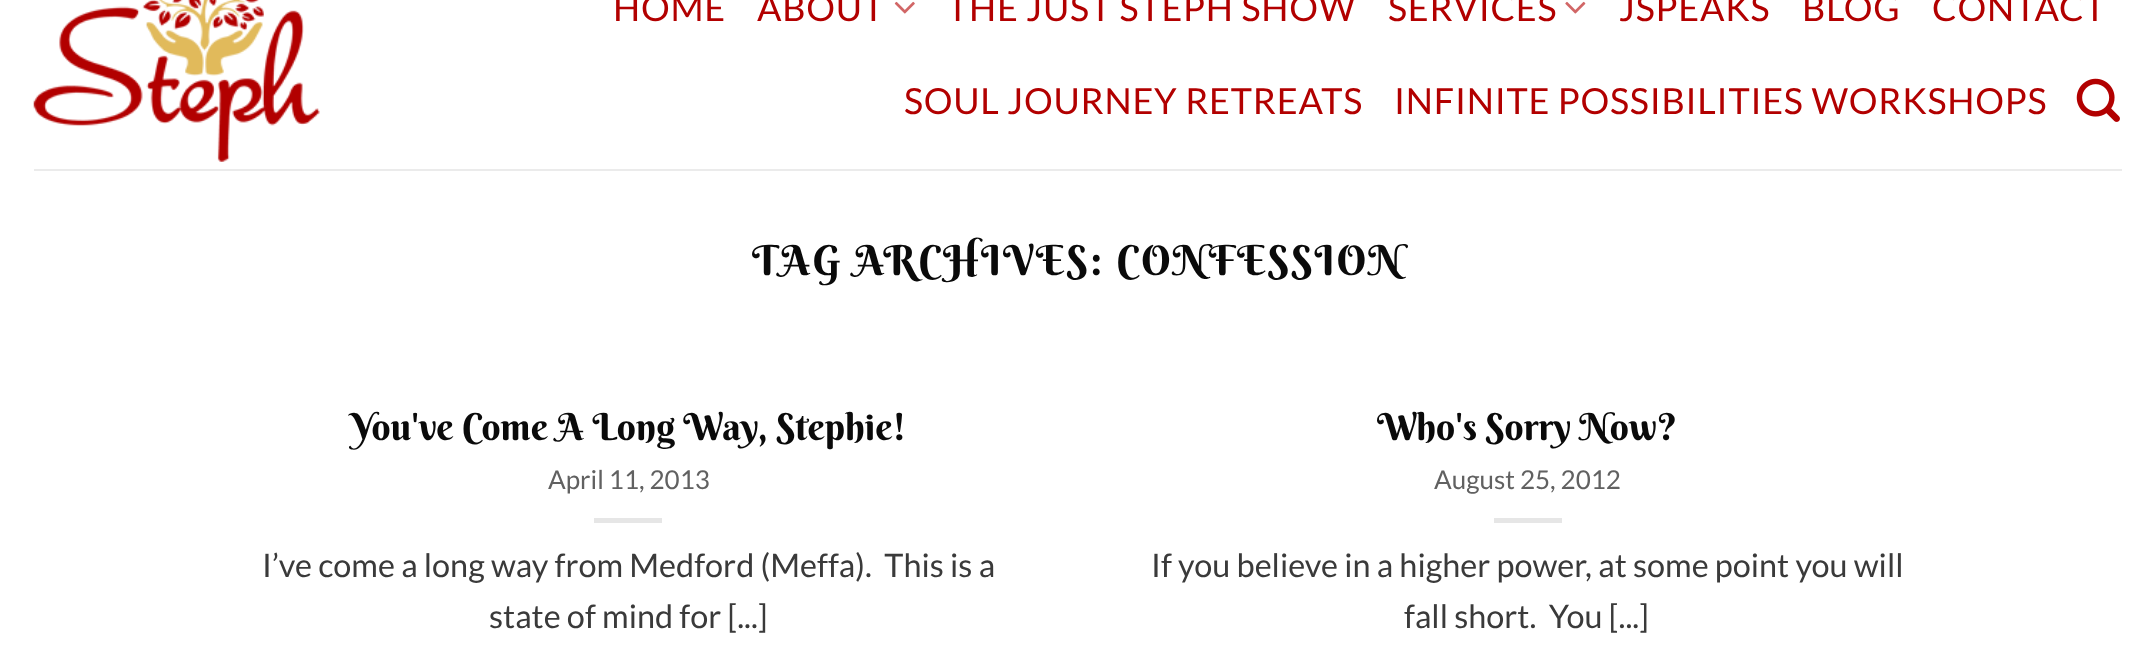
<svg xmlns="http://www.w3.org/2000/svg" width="2155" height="665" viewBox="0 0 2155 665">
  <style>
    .t1 { font: 36px Lato; letter-spacing: 0.75px; fill: #b20000; }
    .t2 { font: 41.4px Berkshire Swash; letter-spacing: 2.1px; fill: #0a0a0a; }
    .t3 { font: 37.25px Berkshire Swash; fill: #0a0a0a; }
    .t4 { font: 26px Lato; fill: #616161; }
    .t5 { font: 32.4px Lato; fill: #3a3a3a; }
  </style>
  <rect width="100%" height="100%" fill="#fff"/>
  <image x="33" y="0" width="287" height="162" href="images/1.png"/>
  <text x="613" y="21" class="t1">HOME</text>
  <text x="757" y="21" class="t1">ABOUT</text>
  <image x="894" y="1" width="21" height="13" href="images/2.png"/>
  <text x="947" y="21" class="t1">THE JUST STEPH SHOW</text>
  <text x="1388" y="21" class="t1">SERVICES</text>
  <image x="1565" y="1" width="21" height="13" href="images/3.png"/>
  <text x="1619" y="21" class="t1">JSPEAKS</text>
  <text x="1802" y="21" class="t1">BLOG</text>
  <text x="1932" y="21" class="t1">CONTACT</text>
  <text x="904" y="114" class="t1">SOUL JOURNEY RETREATS</text>
  <text x="1394" y="114" class="t1">INFINITE POSSIBILITIES WORKSHOPS</text>
  <image x="2076" y="78" width="44" height="44" href="images/4.png"/>
  <rect x="34" y="169" width="2088" height="2" fill="#ebebeb"/>
  <text x="752" y="275" class="t2">TAG ARCHIVES: CONFESSION</text>
  <text x="351" y="440" class="t3">You've Come A Long Way, Stephie!</text>
  <text x="548" y="489" class="t4">April 11, 2013</text>
  <rect x="594" y="518" width="68" height="5" fill="#e6e6e6"/>
  <text x="262" y="577" class="t5" xml:space="preserve">I’ve come a long way from Medford (Meffa).  This is a</text>
  <text x="489" y="628" class="t5">state of mind for [...]</text>
  <text x="1377" y="440" class="t3">Who's Sorry Now?</text>
  <text x="1434" y="489" class="t4">August 25, 2012</text>
  <rect x="1494" y="518" width="68" height="5" fill="#e6e6e6"/>
  <text x="1151" y="577" class="t5">If you believe in a higher power, at some point you will</text>
  <text x="1404" y="628" class="t5" xml:space="preserve">fall short.  You [...]</text>
</svg>
